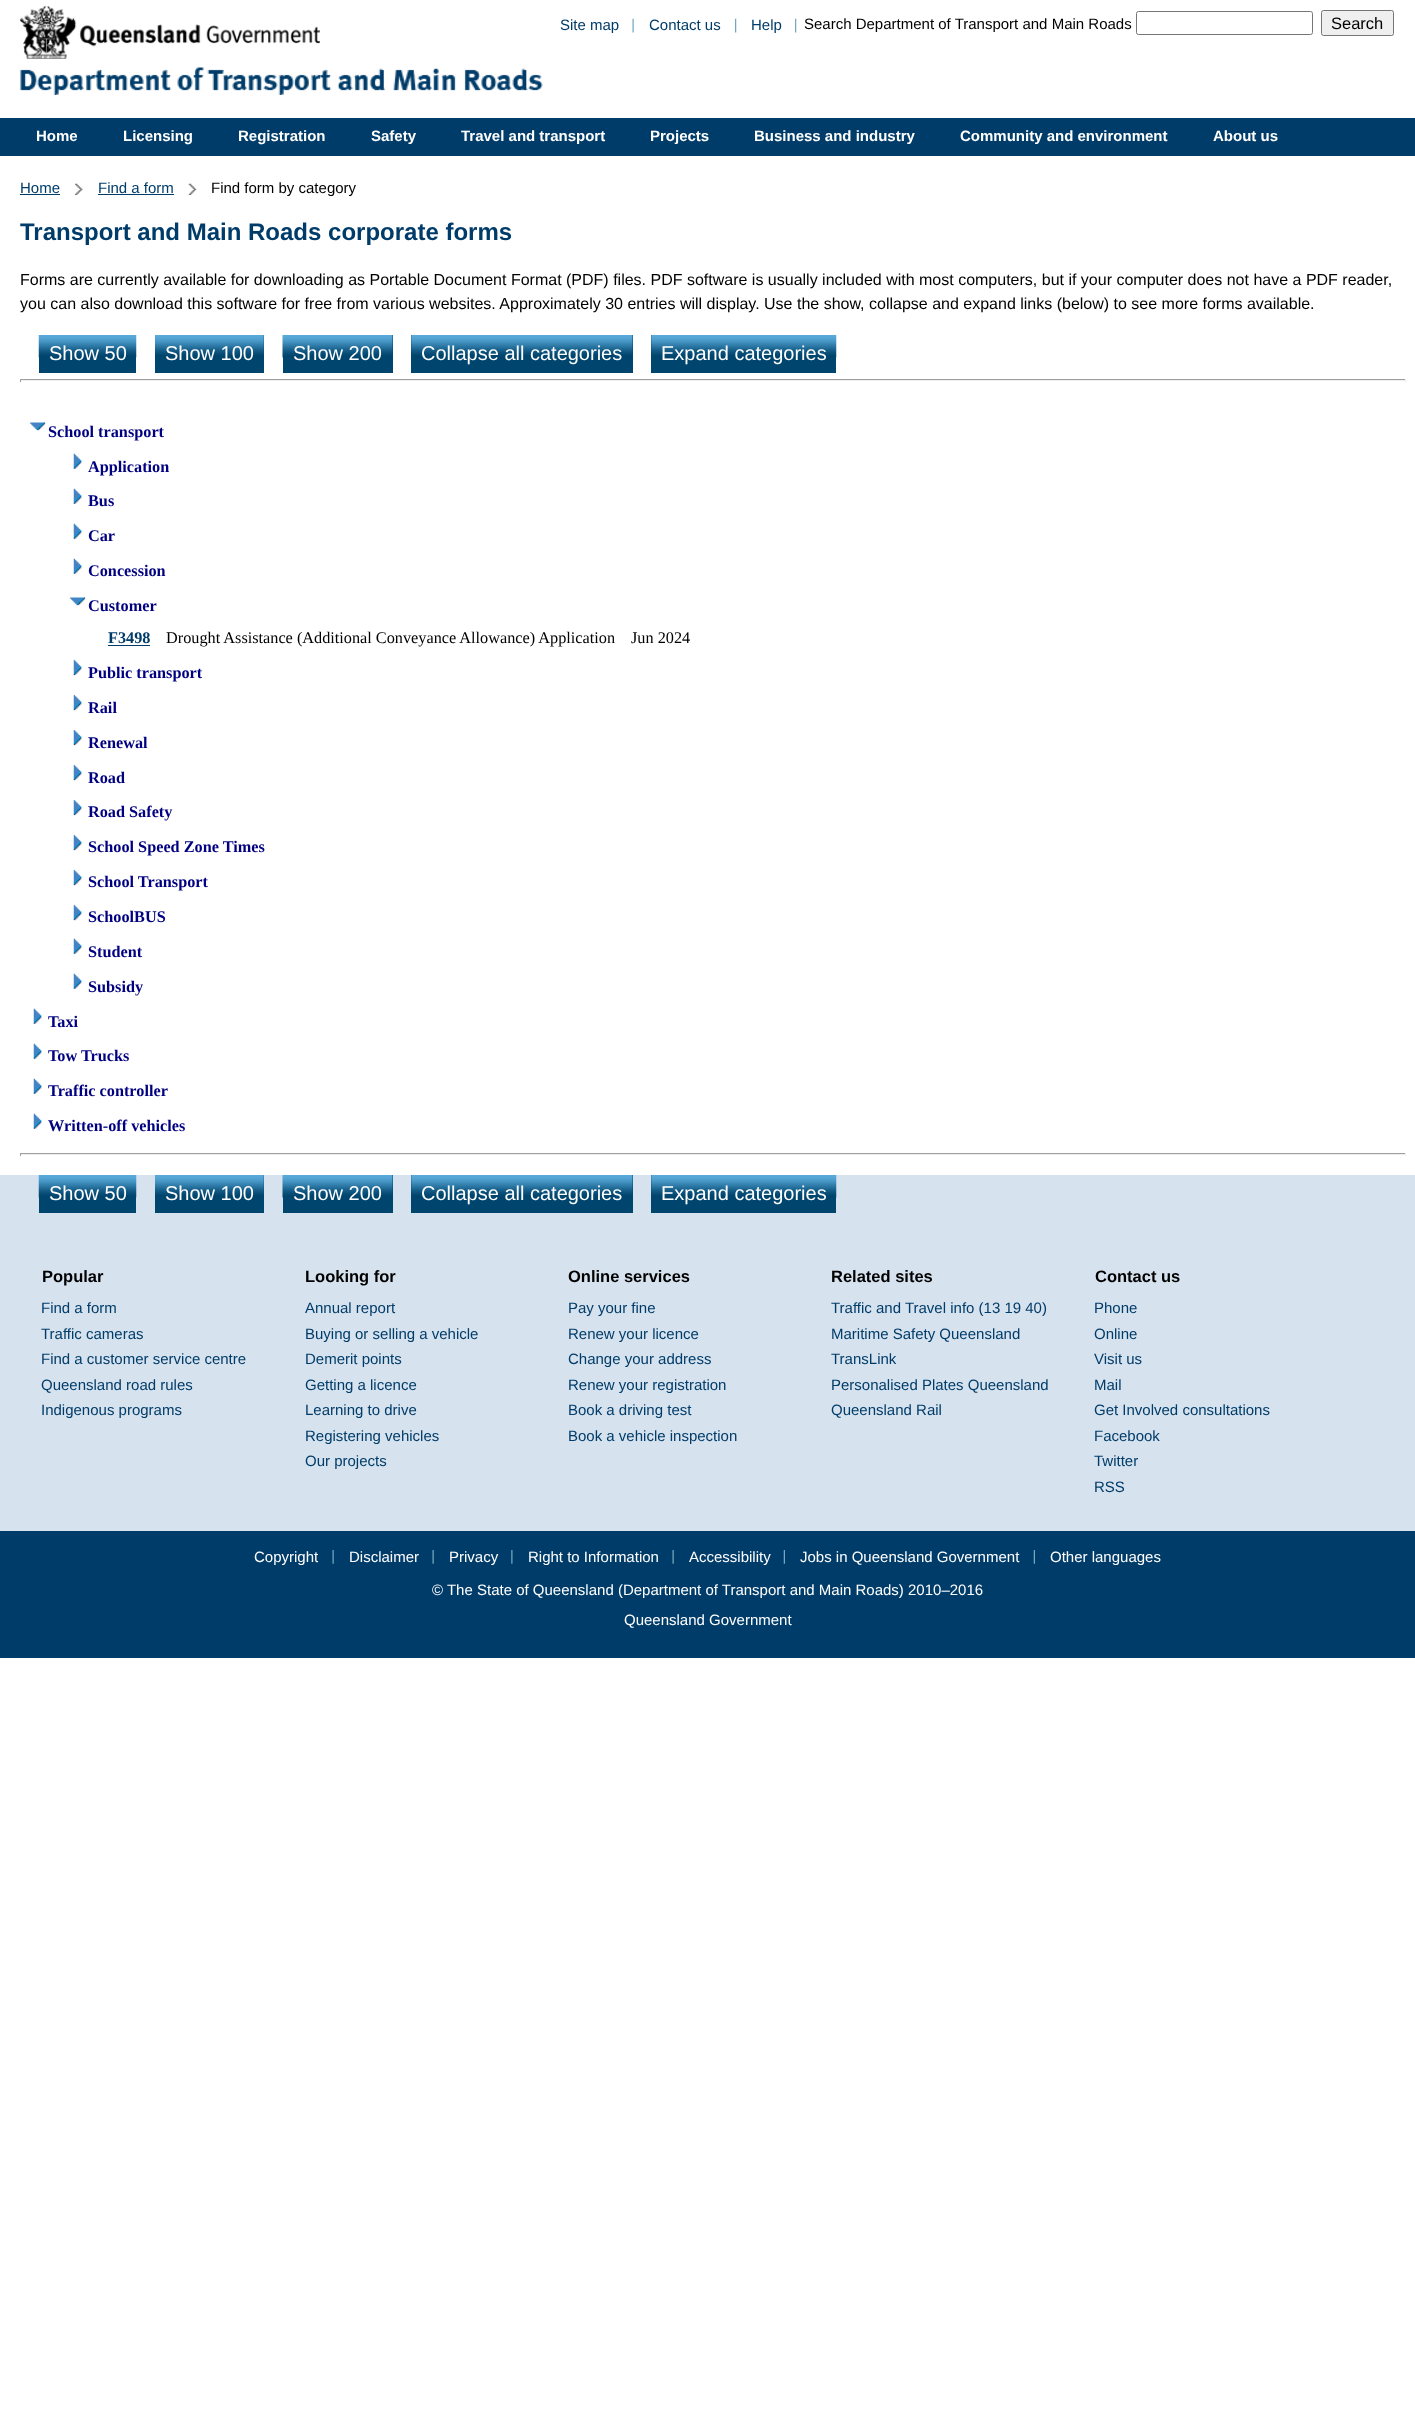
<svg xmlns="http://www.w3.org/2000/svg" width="1415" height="2436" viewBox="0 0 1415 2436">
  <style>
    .t1 { font: 15px Liberation Sans; fill: #003c69; }
    .t2 { font: 15px Liberation Sans; fill: #000; }
    .t3 { font: 16.5px Liberation Sans; fill: #000; }
    .t4 { font: bold 15px Liberation Sans; fill: #fff; }
    .t5 { font: bold 24px Liberation Sans; fill: #003c69; }
    .t6 { font: 16px Liberation Sans; fill: #000; }
    .t7 { font: 20px Liberation Sans; fill: #fff; }
    .t8 { font: bold 16.25px Liberation Serif; fill: #000080; }
    .t9 { font: bold 16.25px Liberation Serif; fill: #003c69; }
    .t10 { font: 16.25px Liberation Serif; fill: #000; }
    .t11 { font: bold 16.5px Liberation Sans; fill: #000; }
    .t12 { font: 15px Liberation Sans; fill: #fff; }
  </style>
  <rect width="100%" height="100%" fill="#fff"/>
  <image x="20" y="6" width="300" height="53" href="images/1.png"/>
  <image x="632" y="18" width="2" height="15" href="images/2.png"/>
  <text x="560" y="30" class="t1">Site map</text>
  <image x="735" y="18" width="2" height="15" href="images/3.png"/>
  <text x="649" y="30" class="t1">Contact us</text>
  <image x="795" y="18" width="2" height="15" href="images/3.png"/>
  <text x="751" y="30" class="t1">Help</text>
  <text x="804" y="29" class="t2">Search Department of Transport and Main Roads</text>
  <rect x="1136.5" y="11.5" width="176" height="23" rx="2" fill="none" stroke="#767676"/>
  <rect x="1321.5" y="10.5" width="72" height="25" rx="2" fill="#efefef" stroke="#767676"/>
  <text x="1331" y="29" class="t3">Search</text>
  <image x="20" y="67" width="523" height="28" href="images/4.png"/>
  <rect x="0" y="118" width="1415" height="38" fill="#003c69"/>
  <text x="36" y="141" class="t4">Home</text>
  <text x="123" y="141" class="t4">Licensing</text>
  <text x="238" y="141" class="t4">Registration</text>
  <text x="371" y="141" class="t4">Safety</text>
  <text x="461" y="141" class="t4">Travel and transport</text>
  <text x="650" y="141" class="t4">Projects</text>
  <text x="754" y="141" class="t4">Business and industry</text>
  <text x="960" y="141" class="t4">Community and environment</text>
  <text x="1213" y="141" class="t4">About us</text>
  <text x="20" y="193" class="t1">Home</text>
  <rect x="20" y="194" width="40" height="1" fill="#003c69"/>
  <image x="75" y="183" width="8" height="12" href="images/5.png"/>
  <text x="98" y="193" class="t1">Find a form</text>
  <rect x="98" y="194" width="76" height="1" fill="#003c69"/>
  <image x="188" y="183" width="9" height="12" href="images/6.png"/>
  <text x="211" y="193" class="t2">Find form by category</text>
  <text x="20" y="240" class="t5">Transport and Main Roads corporate forms</text>
  <text x="20" y="285" class="t6">Forms are currently available for downloading as Portable Document Format (PDF) files. PDF software is usually included with most computers, but if your computer does not have a PDF reader,</text>
  <text x="20" y="309" class="t6">you can also download this software for free from various websites. Approximately 30 entries will display. Use the show, collapse and expand links (below) to see more forms available.</text>
  <rect x="39" y="357" width="97" height="16" fill="#00456e"/>
  <image x="38" y="335" width="99" height="23" href="images/7.png"/>
  <text x="49" y="360" class="t7">Show 50</text>
  <rect x="155" y="335" width="109" height="38" fill="#00456e"/>
  <image x="155" y="335" width="109" height="20" href="images/8.png"/>
  <text x="165" y="360" class="t7">Show 100</text>
  <rect x="283" y="335" width="110" height="38" fill="#00456e"/>
  <image x="282" y="335" width="111" height="23" href="images/9.png"/>
  <text x="293" y="360" class="t7">Show 200</text>
  <rect x="411" y="335" width="222" height="38" fill="#00456e"/>
  <image x="411" y="335" width="222" height="20" href="images/10.png"/>
  <text x="421" y="360" class="t7">Collapse all categories</text>
  <rect x="651" y="335" width="185" height="38" fill="#00456e"/>
  <image x="651" y="335" width="186" height="23" href="images/11.png"/>
  <text x="661" y="360" class="t7">Expand categories</text>
  <rect x="20" y="379" width="1386" height="1" fill="#9f9f9f"/>
  <rect x="1405" y="379" width="1" height="3" fill="#eee"/>
  <rect x="20" y="380" width="1386" height="1" fill="#eee"/>
  <rect x="20" y="379" width="1" height="3" fill="#9f9f9f"/>
  <image x="29" y="422" width="17" height="9" href="images/12.png"/>
  <text x="48" y="437" class="t8">School transport</text>
  <image x="73" y="453" width="9" height="16" href="images/13.png"/>
  <text x="88" y="472" class="t8">Application</text>
  <image x="73" y="488" width="9" height="16" href="images/13.png"/>
  <text x="88" y="506" class="t8">Bus</text>
  <image x="73" y="523" width="9" height="16" href="images/13.png"/>
  <text x="88" y="541" class="t8">Car</text>
  <image x="73" y="558" width="9" height="16" href="images/13.png"/>
  <text x="88" y="576" class="t8">Concession</text>
  <image x="69" y="597" width="17" height="9" href="images/14.png"/>
  <text x="88" y="611" class="t8">Customer</text>
  <text x="108" y="643" class="t9">F3498</text>
  <rect x="108" y="645" width="42" height="1" fill="#003c69"/>
  <text x="166" y="643" class="t10">Drought Assistance (Additional Conveyance Allowance) Application</text>
  <text x="631" y="643" class="t10">Jun 2024</text>
  <image x="73" y="659" width="9" height="17" href="images/15.png"/>
  <text x="88" y="678" class="t8">Public transport</text>
  <image x="73" y="694" width="9" height="17" href="images/15.png"/>
  <text x="88" y="713" class="t8">Rail</text>
  <image x="73" y="729" width="9" height="17" href="images/15.png"/>
  <text x="88" y="748" class="t8">Renewal</text>
  <image x="73" y="764" width="9" height="17" href="images/15.png"/>
  <text x="88" y="783" class="t8">Road</text>
  <image x="73" y="799" width="9" height="17" href="images/15.png"/>
  <text x="88" y="817" class="t8">Road Safety</text>
  <image x="73" y="834" width="9" height="17" href="images/15.png"/>
  <text x="88" y="852" class="t8">School Speed Zone Times</text>
  <image x="73" y="869" width="9" height="17" href="images/15.png"/>
  <text x="88" y="887" class="t8">School Transport</text>
  <image x="73" y="904" width="9" height="17" href="images/15.png"/>
  <text x="88" y="922" class="t8">SchoolBUS</text>
  <image x="73" y="938" width="9" height="16" href="images/13.png"/>
  <text x="88" y="957" class="t8">Student</text>
  <image x="73" y="973" width="9" height="16" href="images/13.png"/>
  <text x="88" y="992" class="t8">Subsidy</text>
  <image x="33" y="1008" width="9" height="16" href="images/16.png"/>
  <text x="48" y="1027" class="t8">Taxi</text>
  <image x="33" y="1043" width="9" height="16" href="images/16.png"/>
  <text x="48" y="1061" class="t8">Tow Trucks</text>
  <image x="33" y="1078" width="9" height="16" href="images/16.png"/>
  <text x="48" y="1096" class="t8">Traffic controller</text>
  <image x="33" y="1113" width="9" height="16" href="images/16.png"/>
  <text x="48" y="1131" class="t8">Written-off vehicles</text>
  <rect x="20" y="1153" width="1386" height="1" fill="#9f9f9f"/>
  <rect x="1405" y="1153" width="1" height="3" fill="#eee"/>
  <rect x="20" y="1154" width="1386" height="1" fill="#eee"/>
  <rect x="20" y="1153" width="1" height="3" fill="#9f9f9f"/>
  <rect x="0" y="1175" width="1415" height="356" fill="#d6e2ee"/>
  <rect x="39" y="1197" width="97" height="16" fill="#00456e"/>
  <image x="38" y="1175" width="99" height="23" href="images/17.png"/>
  <text x="49" y="1200" class="t7">Show 50</text>
  <rect x="155" y="1175" width="109" height="38" fill="#00456e"/>
  <image x="155" y="1175" width="109" height="20" href="images/18.png"/>
  <text x="165" y="1200" class="t7">Show 100</text>
  <rect x="283" y="1175" width="110" height="38" fill="#00456e"/>
  <image x="282" y="1175" width="111" height="23" href="images/19.png"/>
  <text x="293" y="1200" class="t7">Show 200</text>
  <rect x="411" y="1175" width="222" height="38" fill="#00456e"/>
  <image x="411" y="1175" width="222" height="20" href="images/10.png"/>
  <text x="421" y="1200" class="t7">Collapse all categories</text>
  <rect x="651" y="1175" width="185" height="38" fill="#00456e"/>
  <image x="651" y="1175" width="186" height="23" href="images/20.png"/>
  <text x="661" y="1200" class="t7">Expand categories</text>
  <text x="42" y="1282" class="t11">Popular</text>
  <text x="41" y="1313" class="t1">Find a form</text>
  <text x="41" y="1339" class="t1">Traffic cameras</text>
  <text x="41" y="1364" class="t1">Find a customer service centre</text>
  <text x="41" y="1390" class="t1">Queensland road rules</text>
  <text x="41" y="1415" class="t1">Indigenous programs</text>
  <text x="305" y="1282" class="t11">Looking for</text>
  <text x="305" y="1313" class="t1">Annual report</text>
  <text x="305" y="1339" class="t1">Buying or selling a vehicle</text>
  <text x="305" y="1364" class="t1">Demerit points</text>
  <text x="305" y="1390" class="t1">Getting a licence</text>
  <text x="305" y="1415" class="t1">Learning to drive</text>
  <text x="305" y="1441" class="t1">Registering vehicles</text>
  <text x="305" y="1466" class="t1">Our projects</text>
  <text x="568" y="1282" class="t11">Online services</text>
  <text x="568" y="1313" class="t1">Pay your fine</text>
  <text x="568" y="1339" class="t1">Renew your licence</text>
  <text x="568" y="1364" class="t1">Change your address</text>
  <text x="568" y="1390" class="t1">Renew your registration</text>
  <text x="568" y="1415" class="t1">Book a driving test</text>
  <text x="568" y="1441" class="t1">Book a vehicle inspection</text>
  <text x="831" y="1282" class="t11">Related sites</text>
  <text x="831" y="1313" class="t1">Traffic and Travel info (13 19 40)</text>
  <text x="831" y="1339" class="t1">Maritime Safety Queensland</text>
  <text x="831" y="1364" class="t1">TransLink</text>
  <text x="831" y="1390" class="t1">Personalised Plates Queensland</text>
  <text x="831" y="1415" class="t1">Queensland Rail</text>
  <text x="1095" y="1282" class="t11">Contact us</text>
  <text x="1094" y="1313" class="t1">Phone</text>
  <text x="1094" y="1339" class="t1">Online</text>
  <text x="1094" y="1364" class="t1">Visit us</text>
  <text x="1094" y="1390" class="t1">Mail</text>
  <text x="1094" y="1415" class="t1">Get Involved consultations</text>
  <text x="1094" y="1441" class="t1">Facebook</text>
  <text x="1094" y="1466" class="t1">Twitter</text>
  <text x="1094" y="1492" class="t1">RSS</text>
  <rect x="0" y="1531" width="1415" height="127" fill="#003c69"/>
  <image x="332" y="1550" width="2" height="14" href="images/21.png"/>
  <text x="254" y="1562" class="t12">Copyright</text>
  <image x="432" y="1550" width="2" height="14" href="images/21.png"/>
  <text x="349" y="1562" class="t12">Disclaimer</text>
  <image x="511" y="1550" width="2" height="14" href="images/22.png"/>
  <text x="449" y="1562" class="t12">Privacy</text>
  <image x="672" y="1550" width="2" height="14" href="images/21.png"/>
  <text x="528" y="1562" class="t12">Right to Information</text>
  <image x="783" y="1550" width="2" height="14" href="images/23.png"/>
  <text x="689" y="1562" class="t12">Accessibility</text>
  <image x="1033" y="1550" width="2" height="14" href="images/23.png"/>
  <text x="800" y="1562" class="t12">Jobs in Queensland Government</text>
  <text x="1050" y="1562" class="t12">Other languages</text>
  <text x="432" y="1595" class="t12">© The State of Queensland (Department of Transport and Main Roads) 2010–2016</text>
  <text x="624" y="1625" class="t12">Queensland Government</text>
</svg>
